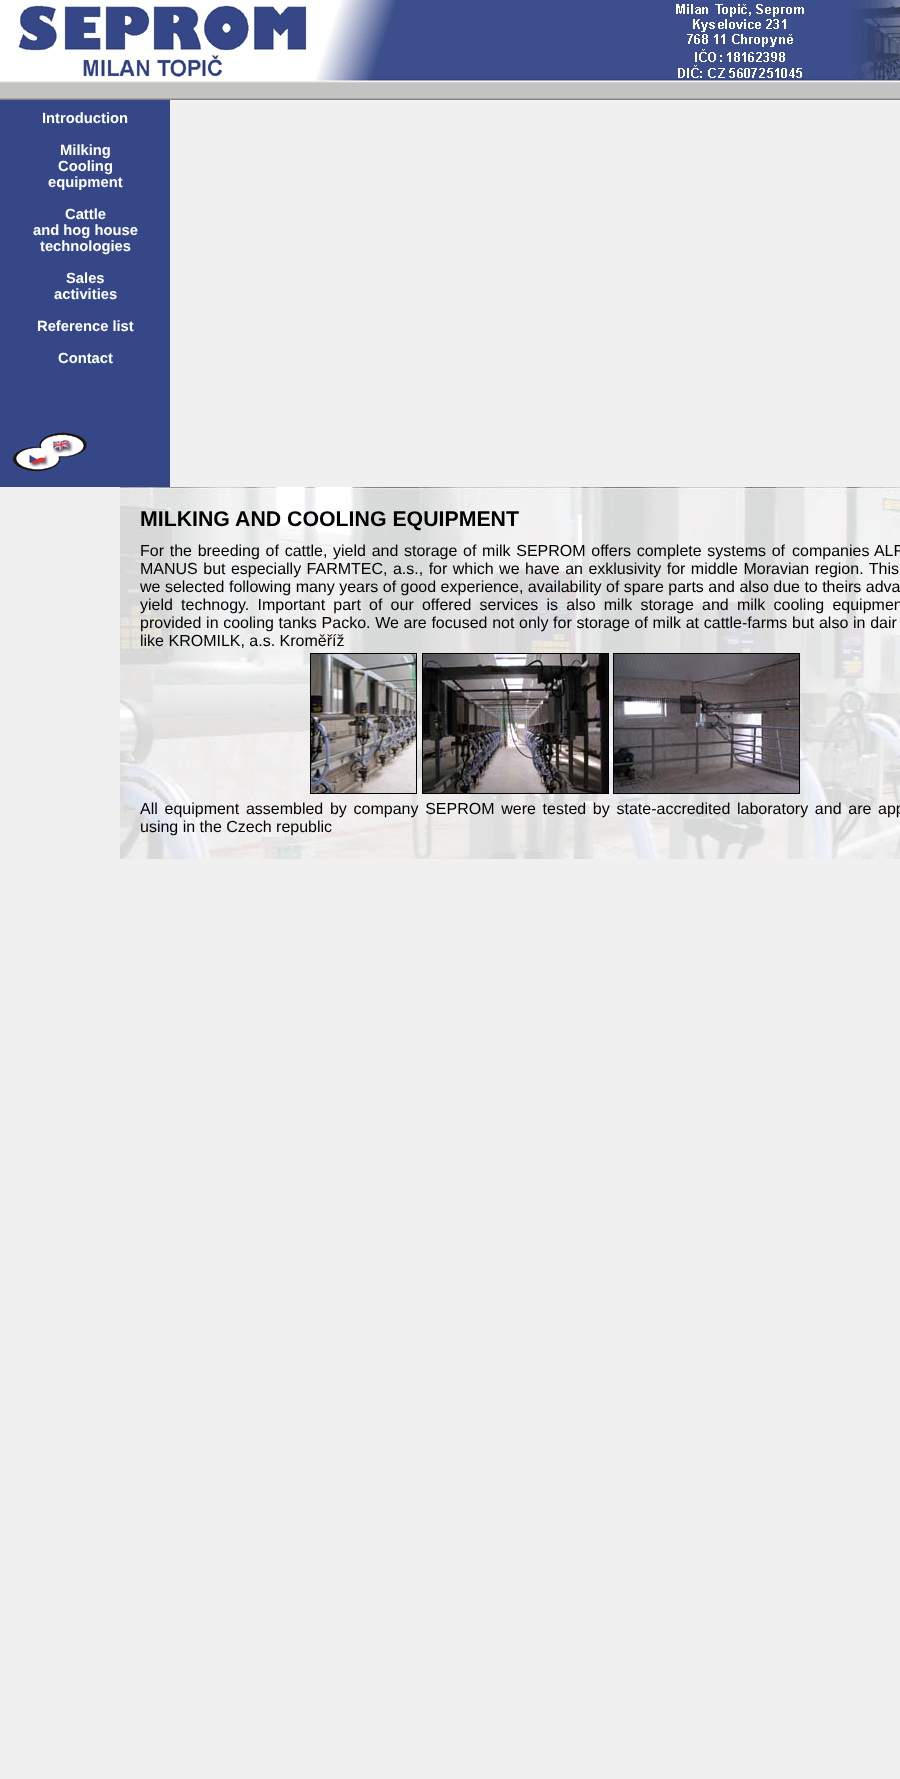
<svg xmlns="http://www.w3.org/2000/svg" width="900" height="1779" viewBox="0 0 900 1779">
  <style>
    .t1 { font: bold 14.75px Liberation Sans; fill: #fff; }
    .t2 { font: bold 21.3px Liberation Sans; fill: #000; }
    .t3 { font: 16px Liberation Sans; fill: #000; }
  </style>
  <rect width="100%" height="100%" fill="#f0f0f0"/>
  <image x="0" y="0" width="900" height="100" href="images/1.png"/>
  <rect x="0" y="100" width="170" height="387" fill="#354787"/>
  <text x="42" y="123" class="t1">Introduction</text>
  <text x="60" y="155" class="t1">Milking</text>
  <text x="58" y="171" class="t1">Cooling</text>
  <text x="48" y="187" class="t1">equipment</text>
  <text x="65" y="219" class="t1">Cattle</text>
  <text x="33" y="235" class="t1">and hog house</text>
  <text x="40" y="251" class="t1">technologies</text>
  <text x="66" y="283" class="t1">Sales</text>
  <text x="54" y="299" class="t1">activities</text>
  <text x="37" y="331" class="t1">Reference list</text>
  <text x="58" y="363" class="t1">Contact</text>
  <image x="10" y="431" width="78" height="41" href="images/2.png"/>
  <image x="120" y="487" width="780" height="372" href="images/3.png"/>
  <text x="140" y="526" class="t2">MILKING AND COOLING EQUIPMENT</text>
  <text x="140" y="556" word-spacing="1.25" class="t3">For the breeding of cattle, yield and storage of milk SEPROM offers complete systems of</text>
  <text x="792" y="556" word-spacing="1" class="t3">companies ALF</text>
  <text x="140" y="574" word-spacing="1" class="t3">MANUS but especially FARMTEC, a.s., for which we have an exklusivity for middle Moravian region. This</text>
  <text x="140" y="592" class="t3">we selected following many years of good experience, availability of spare parts and also due to theirs adva</text>
  <text x="140" y="610" word-spacing="3.75" class="t3">yield technogy. Important part of our offered services is also milk storage and milk cooling equipmen</text>
  <text x="140" y="628" word-spacing="0.25" class="t3">provided in cooling tanks Packo. We are focused not only for storage of milk at cattle-farms but also in dair</text>
  <text x="140" y="646" class="t3">like KROMILK, a.s. Kroměříž</text>
  <rect x="310.5" y="653.5" width="106" height="140" fill="none" stroke="#000"/>
  <rect x="422.5" y="653.5" width="186" height="140" fill="none" stroke="#000"/>
  <rect x="613.5" y="653.5" width="186" height="140" fill="none" stroke="#000"/>
  <image x="311" y="654" width="105" height="139" href="images/4.png"/>
  <image x="423" y="654" width="185" height="139" href="images/5.png"/>
  <image x="614" y="654" width="185" height="139" href="images/6.png"/>
  <text x="140" y="814" word-spacing="2.25" class="t3">All equipment assembled by company SEPROM were tested by state-accredited laboratory and are app</text>
  <text x="140" y="832" class="t3">using in the Czech republic</text>
</svg>
